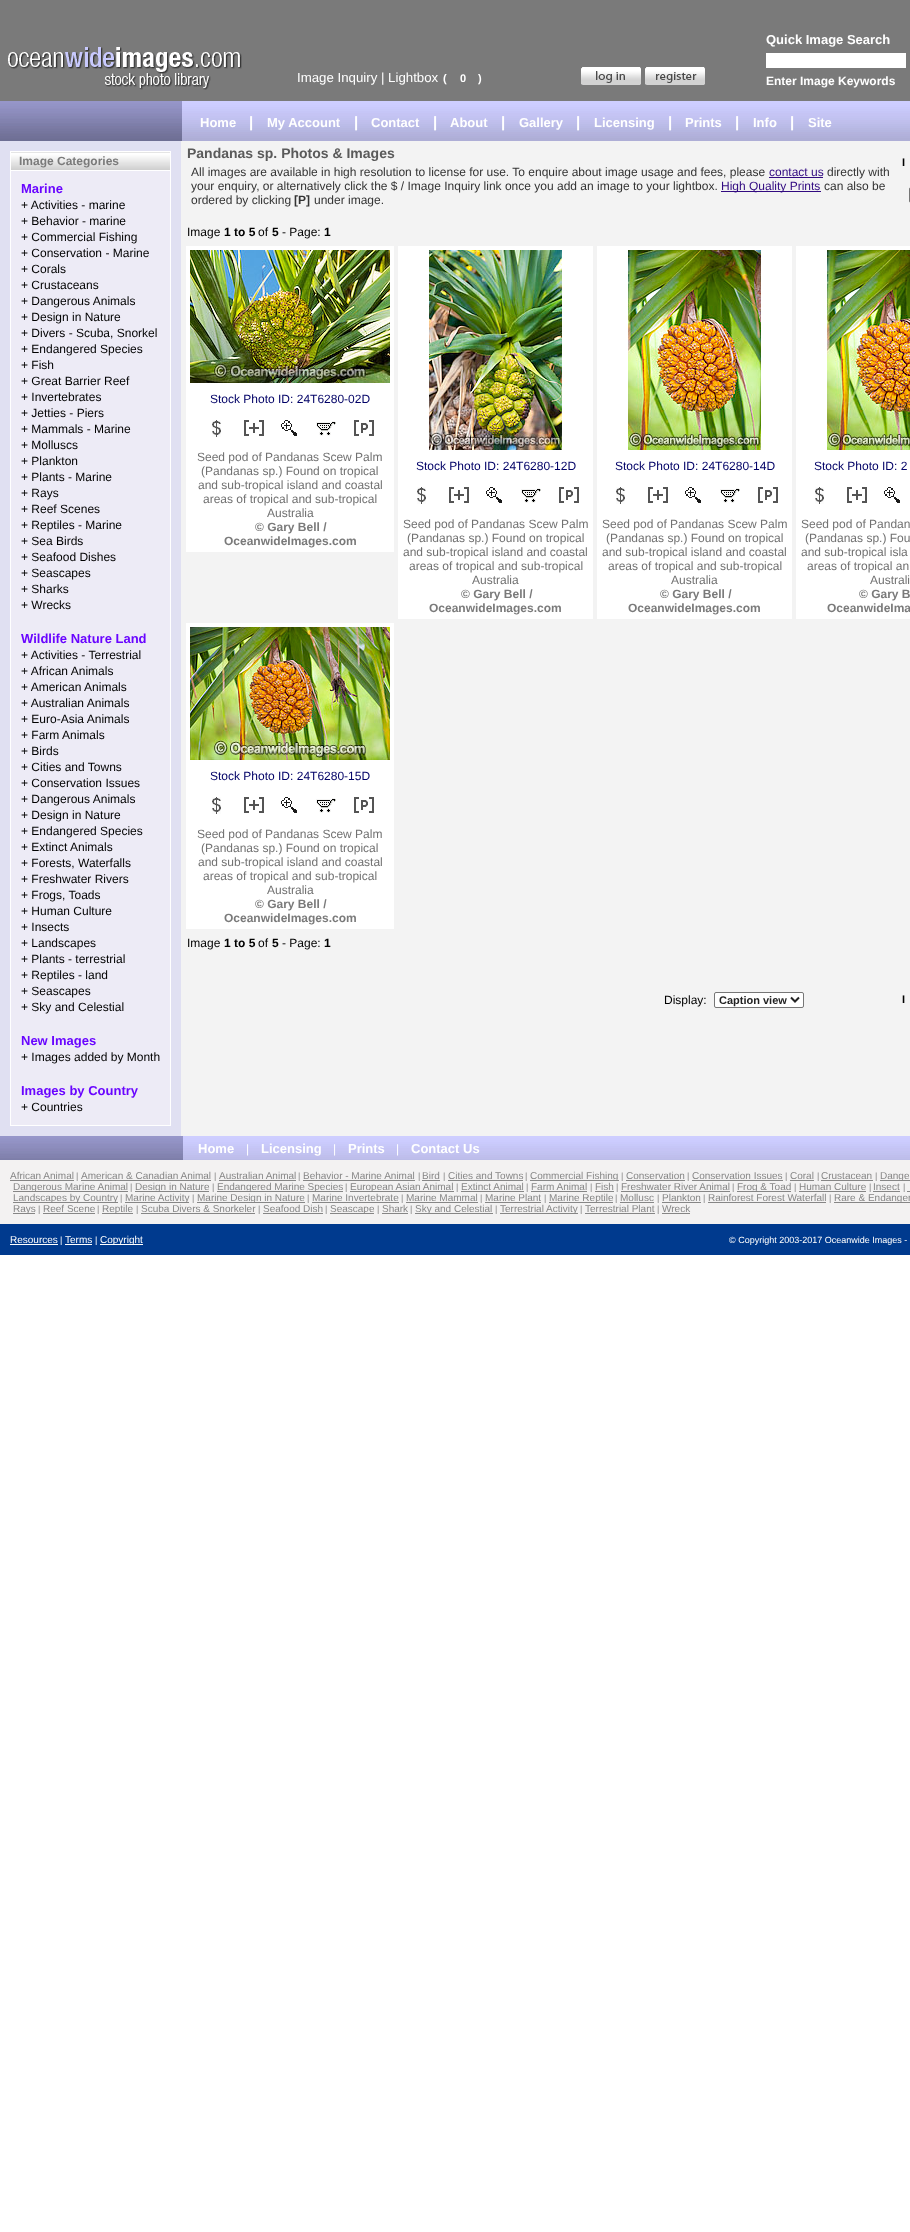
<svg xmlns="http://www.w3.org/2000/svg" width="910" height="2232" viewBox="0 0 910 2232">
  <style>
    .t1 { font: 13.25px Liberation Sans; fill: #fff; }
    .t2 { font: bold 11px Liberation Sans; fill: #fff; }
    .t3 { font: bold 13px Liberation Sans; fill: #fff; }
    .t4 { font: bold 12px Liberation Sans; fill: #fff; }
    .t5 { font: bold 15px Liberation Sans; fill: #fff; }
    .t6 { font: bold 12px Liberation Sans; fill: #7a7a7a; }
    .t7 { font: bold 13px Liberation Sans; fill: #6905ff; }
    .t8 { font: 12px Liberation Sans; fill: #000; }
    .t9 { font: bold 14px Liberation Sans; fill: #5a5a5a; }
    .t10 { font: 12px Liberation Sans; fill: #333; }
    .t11 { font: 12px Liberation Sans; fill: #310a80; }
    .t12 { font: bold 12px Liberation Sans; fill: #333; }
    .t13 { font: bold 11px Liberation Sans; fill: #000; }
    .t14 { font: bold 12px Liberation Sans; fill: #000; }
    .t15 { font: 12px Liberation Sans; fill: #006; }
    .t16 { font: 12px Liberation Sans; fill: #717171; }
    .t17 { font: bold 11px Liberation Sans; fill: #222; }
    .t18 { font: 12px Liberation Sans; fill: #fff; }
    .t19 { font: 10px Liberation Sans; fill: #868686; }
    .t20 { font: 9px Liberation Sans; fill: #868686; }
    .t21 { font: 10px Liberation Sans; fill: #fff; }
    .t22 { font: 9px Liberation Sans; fill: #fff; }
  </style>
  <rect width="100%" height="100%" fill="#fff"/>
  <rect x="0" y="0" width="910" height="101" fill="#7a7a7a"/>
  <image x="8" y="47" width="234" height="43" href="images/1.png"/>
  <text x="297" y="82" class="t1">Image Inquiry | Lightbox</text>
  <text x="443" y="82" class="t2">(</text>
  <text x="460" y="82" class="t2">0</text>
  <text x="478" y="82" class="t2">)</text>
  <image x="581" y="67" width="60" height="18" href="images/2.png"/>
  <image x="645" y="67" width="60" height="18" href="images/3.png"/>
  <text x="766" y="44" class="t3">Quick Image Search</text>
  <rect x="766" y="53" width="140" height="15" fill="#fff"/>
  <text x="766" y="85" class="t4">Enter Image Keywords</text>
  <image x="0" y="101" width="182" height="40" href="images/4.png"/>
  <image x="182" y="101" width="728" height="40" href="images/5.png"/>
  <text x="200" y="127" class="t3">Home</text>
  <text x="249" y="127" class="t5">|</text>
  <text x="267" y="127" class="t3">My Account</text>
  <text x="354" y="127" class="t5">|</text>
  <text x="371" y="127" class="t3">Contact</text>
  <text x="433" y="127" class="t5">|</text>
  <text x="450" y="127" class="t3">About</text>
  <text x="501" y="127" class="t5">|</text>
  <text x="519" y="127" class="t3">Gallery</text>
  <text x="576" y="127" class="t5">|</text>
  <text x="594" y="127" class="t3">Licensing</text>
  <text x="668" y="127" class="t5">|</text>
  <text x="685" y="127" class="t3">Prints</text>
  <text x="735" y="127" class="t5">|</text>
  <text x="753" y="127" class="t3">Info</text>
  <text x="790" y="127" class="t5">|</text>
  <text x="808" y="127" class="t3">Site</text>
  <rect x="0" y="141" width="181" height="995" fill="#e0e0f2"/>
  <rect x="10" y="151" width="161" height="1" fill="#fff"/>
  <rect x="170" y="151" width="1" height="975" fill="#fff"/>
  <rect x="10" y="1125" width="161" height="1" fill="#fff"/>
  <rect x="10" y="151" width="1" height="975" fill="#fff"/>
  <image x="11" y="152" width="159" height="18" href="images/6.png"/>
  <text x="19" y="165" class="t6">Image Categories</text>
  <rect x="11" y="171" width="159" height="954" fill="#edebf6"/>
  <rect x="10" y="170" width="161" height="1" fill="#fff"/>
  <text x="21" y="193" class="t7">Marine</text>
  <text x="21" y="209" class="t8">+ Activities - marine</text>
  <text x="21" y="225" class="t8">+ Behavior - marine</text>
  <text x="21" y="241" class="t8">+ Commercial Fishing</text>
  <text x="21" y="257" class="t8">+ Conservation - Marine</text>
  <text x="21" y="273" class="t8">+ Corals</text>
  <text x="21" y="289" class="t8">+ Crustaceans</text>
  <text x="21" y="305" class="t8">+ Dangerous Animals</text>
  <text x="21" y="321" class="t8">+ Design in Nature</text>
  <text x="21" y="337" class="t8">+ Divers - Scuba, Snorkel</text>
  <text x="21" y="353" class="t8">+ Endangered Species</text>
  <text x="21" y="369" class="t8">+ Fish</text>
  <text x="21" y="385" class="t8">+ Great Barrier Reef</text>
  <text x="21" y="401" class="t8">+ Invertebrates</text>
  <text x="21" y="417" class="t8">+ Jetties - Piers</text>
  <text x="21" y="433" class="t8">+ Mammals - Marine</text>
  <text x="21" y="449" class="t8">+ Molluscs</text>
  <text x="21" y="465" class="t8">+ Plankton</text>
  <text x="21" y="481" class="t8">+ Plants - Marine</text>
  <text x="21" y="497" class="t8">+ Rays</text>
  <text x="21" y="513" class="t8">+ Reef Scenes</text>
  <text x="21" y="529" class="t8">+ Reptiles - Marine</text>
  <text x="21" y="545" class="t8">+ Sea Birds</text>
  <text x="21" y="561" class="t8">+ Seafood Dishes</text>
  <text x="21" y="577" class="t8">+ Seascapes</text>
  <text x="21" y="593" class="t8">+ Sharks</text>
  <text x="21" y="609" class="t8">+ Wrecks</text>
  <text x="21" y="643" class="t7">Wildlife Nature Land</text>
  <text x="21" y="659" class="t8">+ Activities - Terrestrial</text>
  <text x="21" y="675" class="t8">+ African Animals</text>
  <text x="21" y="691" class="t8">+ American Animals</text>
  <text x="21" y="707" class="t8">+ Australian Animals</text>
  <text x="21" y="723" class="t8">+ Euro-Asia Animals</text>
  <text x="21" y="739" class="t8">+ Farm Animals</text>
  <text x="21" y="755" class="t8">+ Birds</text>
  <text x="21" y="771" class="t8">+ Cities and Towns</text>
  <text x="21" y="787" class="t8">+ Conservation Issues</text>
  <text x="21" y="803" class="t8">+ Dangerous Animals</text>
  <text x="21" y="819" class="t8">+ Design in Nature</text>
  <text x="21" y="835" class="t8">+ Endangered Species</text>
  <text x="21" y="851" class="t8">+ Extinct Animals</text>
  <text x="21" y="867" class="t8">+ Forests, Waterfalls</text>
  <text x="21" y="883" class="t8">+ Freshwater Rivers</text>
  <text x="21" y="899" class="t8">+ Frogs, Toads</text>
  <text x="21" y="915" class="t8">+ Human Culture</text>
  <text x="21" y="931" class="t8">+ Insects</text>
  <text x="21" y="947" class="t8">+ Landscapes</text>
  <text x="21" y="963" class="t8">+ Plants - terrestrial</text>
  <text x="21" y="979" class="t8">+ Reptiles - land</text>
  <text x="21" y="995" class="t8">+ Seascapes</text>
  <text x="21" y="1011" class="t8">+ Sky and Celestial</text>
  <text x="21" y="1045" class="t7">New Images</text>
  <text x="21" y="1061" class="t8">+ Images added by Month</text>
  <text x="21" y="1095" class="t7">Images by Country</text>
  <text x="21" y="1111" class="t8">+ Countries</text>
  <rect x="181" y="141" width="729" height="995" fill="#f3f3f3"/>
  <text x="187" y="158" class="t9">Pandanas sp. Photos &amp; Images</text>
  <text x="191" y="176" class="t10">All images are available in high resolution to license for use. To enquire about image usage and fees, please</text>
  <text x="769" y="176" class="t11">contact us</text>
  <rect x="769" y="177" width="54" height="1" fill="#310a80"/>
  <text x="827" y="176" class="t10">directly with</text>
  <text x="191" y="190" class="t10">your enquiry, or alternatively click the $ / Image Inquiry link once you add an image to your lightbox.</text>
  <rect x="721" y="191" width="100" height="1" fill="#310a80"/>
  <text x="721" y="190" class="t11">High Quality Prints</text>
  <text x="824" y="190" class="t10">can also be</text>
  <text x="191" y="204" class="t10">ordered by clicking</text>
  <text x="294" y="204" class="t12">[P]</text>
  <text x="314" y="204" class="t10">under image.</text>
  <text x="902" y="166" class="t13">I</text>
  <rect x="909.5" y="187.5" width="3" height="15" rx="1.5" fill="none" stroke="#767676"/>
  <text x="187" y="236" class="t8">Image</text>
  <text x="224" y="236" class="t14">1 to 5</text>
  <text x="258" y="236" class="t8">of</text>
  <text x="272" y="236" class="t14">5</text>
  <text x="282" y="236" class="t8">- Page:</text>
  <text x="324" y="236" class="t14">1</text>
  <rect x="186" y="246" width="208" height="306" fill="#fff"/>
  <image x="190" y="250" width="200" height="133" href="images/7.png"/>
  <text x="210" y="403" class="t15">Stock Photo ID: 24T6280-02D</text>
  <image x="212" y="420" width="9" height="17" href="images/8.png"/>
  <image x="244" y="420" width="20" height="16" href="images/9.png"/>
  <image x="281" y="420" width="16" height="16" href="images/10.png"/>
  <image x="316" y="421" width="20" height="15" href="images/11.png"/>
  <image x="354" y="420" width="20" height="16" href="images/12.png"/>
  <text x="197" y="461" class="t16">Seed pod of Pandanas Scew Palm</text>
  <text x="201" y="475" class="t16">(Pandanas sp.) Found on tropical</text>
  <text x="198" y="489" class="t16">and sub-tropical island and coastal</text>
  <text x="203" y="503" class="t16">areas of tropical and sub-tropical</text>
  <text x="267" y="517" class="t16">Australia</text>
  <text x="255" y="531" class="t6">© Gary Bell /</text>
  <text x="224" y="545" class="t6">OceanwideImages.com</text>
  <rect x="398" y="246" width="195" height="373" fill="#fff"/>
  <image x="429" y="250" width="133" height="200" href="images/13.png"/>
  <text x="416" y="470" class="t15">Stock Photo ID: 24T6280-12D</text>
  <image x="417" y="487" width="9" height="17" href="images/8.png"/>
  <image x="449" y="487" width="20" height="16" href="images/9.png"/>
  <image x="486" y="487" width="16" height="16" href="images/10.png"/>
  <image x="521" y="488" width="20" height="15" href="images/11.png"/>
  <image x="559" y="487" width="20" height="16" href="images/12.png"/>
  <text x="403" y="528" class="t16">Seed pod of Pandanas Scew Palm</text>
  <text x="407" y="542" class="t16">(Pandanas sp.) Found on tropical</text>
  <text x="403" y="556" class="t16">and sub-tropical island and coastal</text>
  <text x="409" y="570" class="t16">areas of tropical and sub-tropical</text>
  <text x="472" y="584" class="t16">Australia</text>
  <text x="461" y="598" class="t6">© Gary Bell /</text>
  <text x="429" y="612" class="t6">OceanwideImages.com</text>
  <rect x="597" y="246" width="195" height="373" fill="#fff"/>
  <image x="628" y="250" width="133" height="200" href="images/14.png"/>
  <text x="615" y="470" class="t15">Stock Photo ID: 24T6280-14D</text>
  <image x="616" y="487" width="9" height="17" href="images/8.png"/>
  <image x="648" y="487" width="20" height="16" href="images/9.png"/>
  <image x="685" y="487" width="16" height="16" href="images/10.png"/>
  <image x="720" y="488" width="20" height="15" href="images/11.png"/>
  <image x="758" y="487" width="20" height="16" href="images/12.png"/>
  <text x="602" y="528" class="t16">Seed pod of Pandanas Scew Palm</text>
  <text x="606" y="542" class="t16">(Pandanas sp.) Found on tropical</text>
  <text x="602" y="556" class="t16">and sub-tropical island and coastal</text>
  <text x="608" y="570" class="t16">areas of tropical and sub-tropical</text>
  <text x="671" y="584" class="t16">Australia</text>
  <text x="660" y="598" class="t6">© Gary Bell /</text>
  <text x="628" y="612" class="t6">OceanwideImages.com</text>
  <rect x="796" y="246" width="114" height="373" fill="#fff"/>
  <image x="827" y="250" width="83" height="200" href="images/15.png"/>
  <text x="814" y="470" class="t15">Stock Photo ID: 2</text>
  <image x="815" y="487" width="9" height="17" href="images/8.png"/>
  <image x="847" y="487" width="20" height="16" href="images/9.png"/>
  <image x="884" y="487" width="16" height="16" href="images/10.png"/>
  <text x="801" y="528" class="t16">Seed pod of Pandan</text>
  <text x="805" y="542" class="t16">(Pandanas sp.) Fou</text>
  <text x="801" y="556" class="t16">and sub-tropical isla</text>
  <text x="807" y="570" class="t16">areas of tropical an</text>
  <text x="870" y="584" class="t16">Australi</text>
  <text x="859" y="598" class="t6">© Gary B</text>
  <text x="827" y="612" class="t6">OceanwideIma</text>
  <rect x="186" y="623" width="208" height="306" fill="#fff"/>
  <image x="190" y="627" width="200" height="133" href="images/16.png"/>
  <text x="210" y="780" class="t15">Stock Photo ID: 24T6280-15D</text>
  <image x="212" y="797" width="9" height="17" href="images/8.png"/>
  <image x="244" y="797" width="20" height="16" href="images/9.png"/>
  <image x="281" y="797" width="16" height="16" href="images/10.png"/>
  <image x="316" y="798" width="20" height="15" href="images/11.png"/>
  <image x="354" y="797" width="20" height="16" href="images/12.png"/>
  <text x="197" y="838" class="t16">Seed pod of Pandanas Scew Palm</text>
  <text x="201" y="852" class="t16">(Pandanas sp.) Found on tropical</text>
  <text x="198" y="866" class="t16">and sub-tropical island and coastal</text>
  <text x="203" y="880" class="t16">areas of tropical and sub-tropical</text>
  <text x="267" y="894" class="t16">Australia</text>
  <text x="255" y="908" class="t6">© Gary Bell /</text>
  <text x="224" y="922" class="t6">OceanwideImages.com</text>
  <text x="187" y="947" class="t8">Image</text>
  <text x="224" y="947" class="t14">1 to 5</text>
  <text x="258" y="947" class="t8">of</text>
  <text x="272" y="947" class="t14">5</text>
  <text x="282" y="947" class="t8">- Page:</text>
  <text x="324" y="947" class="t14">1</text>
  <text x="664" y="1004" class="t8">Display:</text>
  <rect x="714.5" y="992.5" width="89" height="15" rx="1.5" fill="#fff" stroke="#767676"/>
  <path d="M791 997.5L795 1001.5L799 997.5" fill="none" stroke="#222" stroke-width="2"/>
  <text x="719" y="1004" class="t17">Caption view</text>
  <text x="902" y="1003" class="t13">I</text>
  <image x="0" y="1136" width="183" height="24" href="images/17.png"/>
  <image x="183" y="1136" width="727" height="24" href="images/18.png"/>
  <text x="198" y="1153" class="t3">Home</text>
  <text x="246" y="1153" class="t18">|</text>
  <text x="261" y="1153" class="t3">Licensing</text>
  <text x="333" y="1153" class="t18">|</text>
  <text x="348" y="1153" class="t3">Prints</text>
  <text x="396" y="1153" class="t18">|</text>
  <text x="411" y="1153" class="t3">Contact Us</text>
  <rect x="0" y="1160" width="910" height="64" fill="#f3f2f2"/>
  <text x="10" y="1179" class="t19">African Animal</text>
  <rect x="10" y="1180" width="64" height="1" fill="#868686"/>
  <text x="76" y="1179" class="t20">|</text>
  <text x="81" y="1179" class="t19">American &amp; Canadian Animal</text>
  <rect x="81" y="1180" width="130" height="1" fill="#868686"/>
  <text x="214" y="1179" class="t20">|</text>
  <text x="219" y="1179" class="t19">Australian Animal</text>
  <rect x="219" y="1180" width="77" height="1" fill="#868686"/>
  <text x="298" y="1179" class="t20">|</text>
  <text x="303" y="1179" class="t19">Behavior - Marine Animal</text>
  <rect x="303" y="1180" width="112" height="1" fill="#868686"/>
  <text x="418" y="1179" class="t20">|</text>
  <text x="422" y="1179" class="t19">Bird</text>
  <rect x="422" y="1180" width="18" height="1" fill="#868686"/>
  <text x="443" y="1179" class="t20">|</text>
  <text x="448" y="1179" class="t19">Cities and Towns</text>
  <rect x="448" y="1180" width="75" height="1" fill="#868686"/>
  <text x="525" y="1179" class="t20">|</text>
  <rect x="530" y="1180" width="89" height="1" fill="#868686"/>
  <text x="530" y="1179" class="t19">Commercial Fishing</text>
  <text x="621" y="1179" class="t20">|</text>
  <text x="626" y="1179" class="t19">Conservation</text>
  <rect x="626" y="1180" width="59" height="1" fill="#868686"/>
  <text x="687" y="1179" class="t20">|</text>
  <text x="692" y="1179" class="t19">Conservation Issues</text>
  <rect x="692" y="1180" width="91" height="1" fill="#868686"/>
  <text x="785" y="1179" class="t20">|</text>
  <text x="790" y="1179" class="t19">Coral</text>
  <rect x="790" y="1180" width="24" height="1" fill="#868686"/>
  <text x="817" y="1179" class="t20">|</text>
  <text x="821" y="1179" class="t19">Crustacean</text>
  <rect x="821" y="1180" width="52" height="1" fill="#868686"/>
  <text x="875" y="1179" class="t20">|</text>
  <rect x="880" y="1180" width="30" height="1" fill="#868686"/>
  <text x="880" y="1179" class="t19">Dange</text>
  <rect x="13" y="1191" width="115" height="1" fill="#868686"/>
  <text x="13" y="1190" class="t19">Dangerous Marine Animal</text>
  <text x="130" y="1190" class="t20">|</text>
  <rect x="135" y="1191" width="74" height="1" fill="#868686"/>
  <text x="135" y="1190" class="t19">Design in Nature</text>
  <text x="212" y="1190" class="t20">|</text>
  <rect x="217" y="1191" width="126" height="1" fill="#868686"/>
  <text x="217" y="1190" class="t19">Endangered Marine Species</text>
  <text x="345" y="1190" class="t20">|</text>
  <rect x="350" y="1191" width="104" height="1" fill="#868686"/>
  <text x="350" y="1190" class="t19">European Asian Animal</text>
  <text x="456" y="1190" class="t20">|</text>
  <text x="461" y="1190" class="t19">Extinct Animal</text>
  <rect x="461" y="1191" width="63" height="1" fill="#868686"/>
  <text x="526" y="1190" class="t20">|</text>
  <text x="531" y="1190" class="t19">Farm Animal</text>
  <rect x="531" y="1191" width="56" height="1" fill="#868686"/>
  <text x="590" y="1190" class="t20">|</text>
  <text x="595" y="1190" class="t19">Fish</text>
  <rect x="595" y="1191" width="19" height="1" fill="#868686"/>
  <text x="616" y="1190" class="t20">|</text>
  <text x="621" y="1190" class="t19">Freshwater River Animal</text>
  <rect x="621" y="1191" width="109" height="1" fill="#868686"/>
  <text x="732" y="1190" class="t20">|</text>
  <rect x="737" y="1191" width="54" height="1" fill="#868686"/>
  <text x="737" y="1190" class="t19">Frog &amp; Toad</text>
  <text x="794" y="1190" class="t20">|</text>
  <text x="799" y="1190" class="t19">Human Culture</text>
  <rect x="799" y="1191" width="67" height="1" fill="#868686"/>
  <text x="869" y="1190" class="t20">|</text>
  <text x="873" y="1190" class="t19">Insect</text>
  <rect x="873" y="1191" width="27" height="1" fill="#868686"/>
  <text x="903" y="1190" class="t20">|</text>
  <rect x="907" y="1191" width="3" height="1" fill="#868686"/>
  <rect x="13" y="1202" width="105" height="1" fill="#868686"/>
  <text x="13" y="1201" class="t19">Landscapes by Country</text>
  <text x="120" y="1201" class="t20">|</text>
  <rect x="125" y="1202" width="64" height="1" fill="#868686"/>
  <text x="125" y="1201" class="t19">Marine Activity</text>
  <text x="192" y="1201" class="t20">|</text>
  <rect x="197" y="1202" width="108" height="1" fill="#868686"/>
  <text x="197" y="1201" class="t19">Marine Design in Nature</text>
  <text x="307" y="1201" class="t20">|</text>
  <text x="312" y="1201" class="t19">Marine Invertebrate</text>
  <rect x="312" y="1202" width="87" height="1" fill="#868686"/>
  <text x="401" y="1201" class="t20">|</text>
  <text x="406" y="1201" class="t19">Marine Mammal</text>
  <rect x="406" y="1202" width="72" height="1" fill="#868686"/>
  <text x="480" y="1201" class="t20">|</text>
  <text x="485" y="1201" class="t19">Marine Plant</text>
  <rect x="485" y="1202" width="56" height="1" fill="#868686"/>
  <text x="544" y="1201" class="t20">|</text>
  <rect x="549" y="1202" width="64" height="1" fill="#868686"/>
  <text x="549" y="1201" class="t19">Marine Reptile</text>
  <text x="615" y="1201" class="t20">|</text>
  <text x="620" y="1201" class="t19">Mollusc</text>
  <rect x="620" y="1202" width="34" height="1" fill="#868686"/>
  <text x="657" y="1201" class="t20">|</text>
  <text x="662" y="1201" class="t19">Plankton</text>
  <rect x="662" y="1202" width="39" height="1" fill="#868686"/>
  <text x="703" y="1201" class="t20">|</text>
  <text x="708" y="1201" class="t19">Rainforest Forest Waterfall</text>
  <rect x="708" y="1202" width="118" height="1" fill="#868686"/>
  <text x="829" y="1201" class="t20">|</text>
  <rect x="834" y="1202" width="76" height="1" fill="#868686"/>
  <text x="834" y="1201" class="t19">Rare &amp; Endanger</text>
  <rect x="13" y="1213" width="22" height="1" fill="#868686"/>
  <text x="13" y="1212" class="t19">Rays</text>
  <text x="38" y="1212" class="t20">|</text>
  <text x="43" y="1212" class="t19">Reef Scene</text>
  <rect x="43" y="1213" width="52" height="1" fill="#868686"/>
  <text x="97" y="1212" class="t20">|</text>
  <rect x="102" y="1213" width="31" height="1" fill="#868686"/>
  <text x="102" y="1212" class="t19">Reptile</text>
  <text x="136" y="1212" class="t20">|</text>
  <text x="141" y="1212" class="t19">Scuba Divers &amp; Snorkeler</text>
  <rect x="141" y="1213" width="114" height="1" fill="#868686"/>
  <text x="258" y="1212" class="t20">|</text>
  <text x="263" y="1212" class="t19">Seafood Dish</text>
  <rect x="263" y="1213" width="60" height="1" fill="#868686"/>
  <text x="325" y="1212" class="t20">|</text>
  <rect x="330" y="1213" width="44" height="1" fill="#868686"/>
  <text x="330" y="1212" class="t19">Seascape</text>
  <text x="377" y="1212" class="t20">|</text>
  <text x="382" y="1212" class="t19">Shark</text>
  <rect x="382" y="1213" width="26" height="1" fill="#868686"/>
  <text x="410" y="1212" class="t20">|</text>
  <rect x="415" y="1213" width="78" height="1" fill="#868686"/>
  <text x="415" y="1212" class="t19">Sky and Celestial</text>
  <text x="495" y="1212" class="t20">|</text>
  <rect x="500" y="1213" width="78" height="1" fill="#868686"/>
  <text x="500" y="1212" class="t19">Terrestrial Activity</text>
  <text x="580" y="1212" class="t20">|</text>
  <text x="585" y="1212" class="t19">Terrestrial Plant</text>
  <rect x="585" y="1213" width="70" height="1" fill="#868686"/>
  <text x="657" y="1212" class="t20">|</text>
  <text x="662" y="1212" class="t19">Wreck</text>
  <rect x="662" y="1213" width="28" height="1" fill="#868686"/>
  <rect x="0" y="1224" width="910" height="31" fill="#003a8e"/>
  <text x="10" y="1243" class="t21">Resources</text>
  <rect x="10" y="1244" width="48" height="1" fill="#fff"/>
  <text x="60" y="1243" class="t22">|</text>
  <text x="65" y="1243" class="t21">Terms</text>
  <rect x="65" y="1244" width="27" height="1" fill="#fff"/>
  <text x="95" y="1243" class="t22">|</text>
  <rect x="100" y="1244" width="43" height="1" fill="#fff"/>
  <text x="100" y="1243" class="t21">Copyright</text>
  <text x="729" y="1243" class="t22">© Copyright 2003-2017 Oceanwide Images -</text>
</svg>
